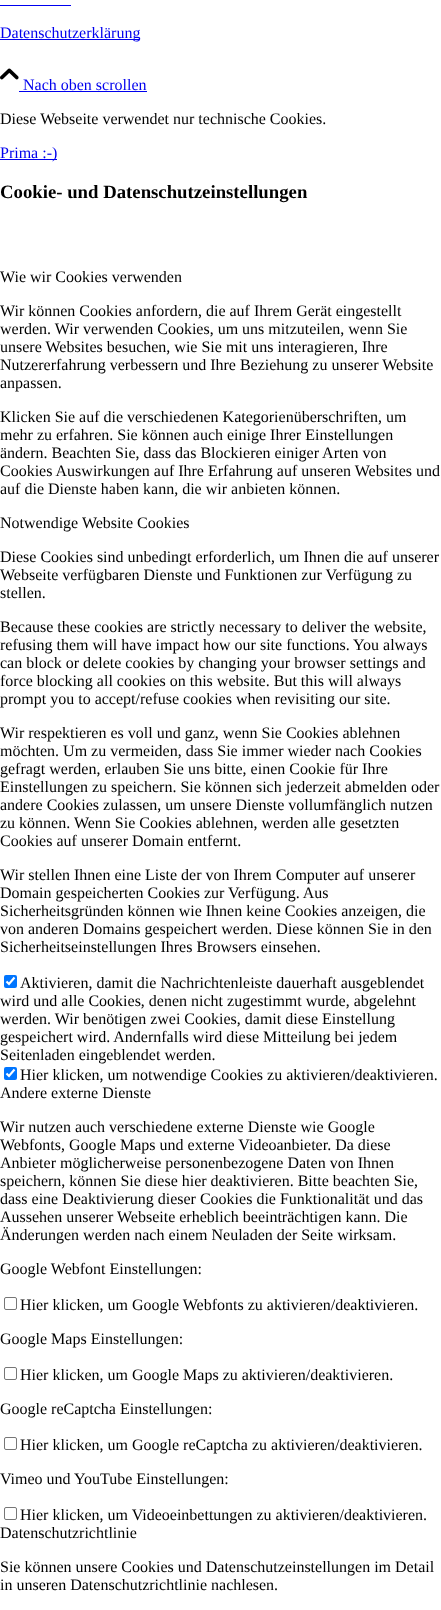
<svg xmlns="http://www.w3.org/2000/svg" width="441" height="1610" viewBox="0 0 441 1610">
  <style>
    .t1 { font: 16px Liberation Serif; fill: #00e; }
    .t2 { font: 16px Liberation Serif; fill: #000; }
    .t3 { font: bold 18.75px Liberation Serif; fill: #000; }
  </style>
  <rect width="100%" height="100%" fill="#fff"/>
  <rect x="0" y="5" width="71" height="1" fill="#00e"/>
  <rect x="0" y="39" width="140" height="1" fill="#00e"/>
  <text x="0" y="38" class="t1">Datenschutzerklärung</text>
  <image x="0" y="68" width="19" height="12" href="images/1.png"/>
  <text x="23" y="90" class="t1">Nach oben scrollen</text>
  <rect x="19" y="91" width="128" height="1" fill="#00e"/>
  <text x="0" y="124" class="t2">Diese Webseite verwendet nur technische Cookies.</text>
  <rect x="0" y="159" width="57" height="1" fill="#00e"/>
  <text x="0" y="158" class="t1">Prima :-)</text>
  <text x="0" y="198" class="t3">Cookie- und Datenschutzeinstellungen</text>
  <text x="0" y="282" class="t2">Wie wir Cookies verwenden</text>
  <text x="0" y="316" class="t2">Wir können Cookies anfordern, die auf Ihrem Gerät eingestellt</text>
  <text x="0" y="334" class="t2">werden. Wir verwenden Cookies, um uns mitzuteilen, wenn Sie</text>
  <text x="0" y="352" class="t2">unsere Websites besuchen, wie Sie mit uns interagieren, Ihre</text>
  <text x="0" y="370" class="t2">Nutzererfahrung verbessern und Ihre Beziehung zu unserer Website</text>
  <text x="0" y="388" class="t2">anpassen.</text>
  <text x="0" y="422" class="t2">Klicken Sie auf die verschiedenen Kategorienüberschriften, um</text>
  <text x="0" y="440" class="t2">mehr zu erfahren. Sie können auch einige Ihrer Einstellungen</text>
  <text x="0" y="458" class="t2">ändern. Beachten Sie, dass das Blockieren einiger Arten von</text>
  <text x="0" y="476" class="t2">Cookies Auswirkungen auf Ihre Erfahrung auf unseren Websites und</text>
  <text x="0" y="494" class="t2">auf die Dienste haben kann, die wir anbieten können.</text>
  <text x="0" y="528" class="t2">Notwendige Website Cookies</text>
  <text x="0" y="562" class="t2">Diese Cookies sind unbedingt erforderlich, um Ihnen die auf unserer</text>
  <text x="0" y="580" class="t2">Webseite verfügbaren Dienste und Funktionen zur Verfügung zu</text>
  <text x="0" y="598" class="t2">stellen.</text>
  <text x="0" y="632" class="t2">Because these cookies are strictly necessary to deliver the website,</text>
  <text x="0" y="650" class="t2">refusing them will have impact how our site functions. You always</text>
  <text x="0" y="668" class="t2">can block or delete cookies by changing your browser settings and</text>
  <text x="0" y="686" class="t2">force blocking all cookies on this website. But this will always</text>
  <text x="0" y="704" class="t2">prompt you to accept/refuse cookies when revisiting our site.</text>
  <text x="0" y="738" class="t2">Wir respektieren es voll und ganz, wenn Sie Cookies ablehnen</text>
  <text x="0" y="756" class="t2">möchten. Um zu vermeiden, dass Sie immer wieder nach Cookies</text>
  <text x="0" y="774" class="t2">gefragt werden, erlauben Sie uns bitte, einen Cookie für Ihre</text>
  <text x="0" y="792" class="t2">Einstellungen zu speichern. Sie können sich jederzeit abmelden oder</text>
  <text x="0" y="810" class="t2">andere Cookies zulassen, um unsere Dienste vollumfänglich nutzen</text>
  <text x="0" y="828" class="t2">zu können. Wenn Sie Cookies ablehnen, werden alle gesetzten</text>
  <text x="0" y="846" class="t2">Cookies auf unserer Domain entfernt.</text>
  <text x="0" y="880" class="t2">Wir stellen Ihnen eine Liste der von Ihrem Computer auf unserer</text>
  <text x="0" y="898" class="t2">Domain gespeicherten Cookies zur Verfügung. Aus</text>
  <text x="0" y="916" class="t2">Sicherheitsgründen können wie Ihnen keine Cookies anzeigen, die</text>
  <text x="0" y="934" class="t2">von anderen Domains gespeichert werden. Diese können Sie in den</text>
  <text x="0" y="952" class="t2">Sicherheitseinstellungen Ihres Browsers einsehen.</text>
  <rect x="4" y="975" width="13" height="13" rx="2" fill="#0075ff"/>
  <path d="M6.5 981.5L9 984L14.5 977.5" fill="none" stroke="#fff" stroke-width="2.1"/>
  <text x="20" y="988" class="t2">Aktivieren, damit die Nachrichtenleiste dauerhaft ausgeblendet</text>
  <text x="0" y="1006" class="t2">wird und alle Cookies, denen nicht zugestimmt wurde, abgelehnt</text>
  <text x="0" y="1024" class="t2">werden. Wir benötigen zwei Cookies, damit diese Einstellung</text>
  <text x="0" y="1042" class="t2">gespeichert wird. Andernfalls wird diese Mitteilung bei jedem</text>
  <text x="0" y="1060" class="t2">Seitenladen eingeblendet werden.</text>
  <rect x="4" y="1067" width="13" height="13" rx="2" fill="#0075ff"/>
  <path d="M6.5 1073.5L9 1076L14.5 1069.5" fill="none" stroke="#fff" stroke-width="2.1"/>
  <text x="20" y="1080" class="t2">Hier klicken, um notwendige Cookies zu aktivieren/deaktivieren.</text>
  <text x="0" y="1098" class="t2">Andere externe Dienste</text>
  <text x="0" y="1132" class="t2">Wir nutzen auch verschiedene externe Dienste wie Google</text>
  <text x="0" y="1150" class="t2">Webfonts, Google Maps und externe Videoanbieter. Da diese</text>
  <text x="0" y="1168" class="t2">Anbieter möglicherweise personenbezogene Daten von Ihnen</text>
  <text x="0" y="1186" class="t2">speichern, können Sie diese hier deaktivieren. Bitte beachten Sie,</text>
  <text x="0" y="1204" class="t2">dass eine Deaktivierung dieser Cookies die Funktionalität und das</text>
  <text x="0" y="1222" class="t2">Aussehen unserer Webseite erheblich beeinträchtigen kann. Die</text>
  <text x="0" y="1240" class="t2">Änderungen werden nach einem Neuladen der Seite wirksam.</text>
  <text x="0" y="1274" class="t2">Google Webfont Einstellungen:</text>
  <rect x="4.5" y="1297.5" width="12" height="12" rx="1.5" fill="none" stroke="#767676"/>
  <text x="20" y="1310" class="t2">Hier klicken, um Google Webfonts zu aktivieren/deaktivieren.</text>
  <text x="0" y="1344" class="t2">Google Maps Einstellungen:</text>
  <rect x="4.5" y="1367.5" width="12" height="12" rx="1.5" fill="none" stroke="#767676"/>
  <text x="20" y="1380" class="t2">Hier klicken, um Google Maps zu aktivieren/deaktivieren.</text>
  <text x="0" y="1414" class="t2">Google reCaptcha Einstellungen:</text>
  <rect x="4.5" y="1437.5" width="12" height="12" rx="1.5" fill="none" stroke="#767676"/>
  <text x="20" y="1450" class="t2">Hier klicken, um Google reCaptcha zu aktivieren/deaktivieren.</text>
  <text x="0" y="1484" class="t2">Vimeo und YouTube Einstellungen:</text>
  <rect x="4.5" y="1507.5" width="12" height="12" rx="1.5" fill="none" stroke="#767676"/>
  <text x="20" y="1520" class="t2">Hier klicken, um Videoeinbettungen zu aktivieren/deaktivieren.</text>
  <text x="0" y="1538" class="t2">Datenschutzrichtlinie</text>
  <text x="0" y="1572" class="t2">Sie können unsere Cookies und Datenschutzeinstellungen im Detail</text>
  <text x="0" y="1590" class="t2">in unseren Datenschutzrichtlinie nachlesen.</text>
</svg>
